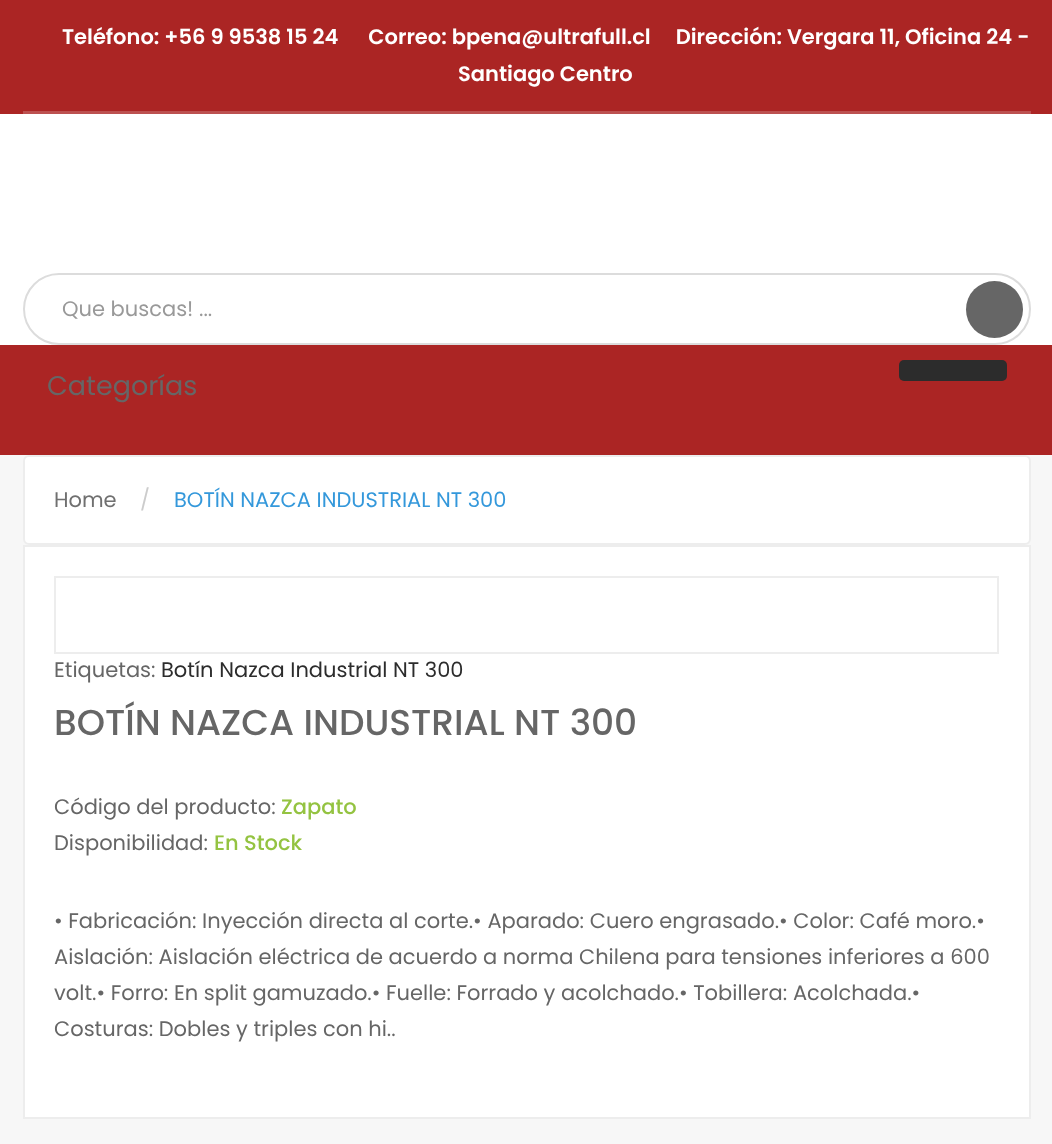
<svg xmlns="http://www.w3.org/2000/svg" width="1052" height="1144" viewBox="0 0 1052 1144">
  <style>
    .t1 { font: 600 21px Poppins; fill: #fff; }
    .t2 { font: 21px Poppins; fill: #999; }
    .t3 { font: 27px Poppins; fill: #666; }
    .t4 { font: 21px Poppins; fill: #707070; }
    .t5 { font: 21px Poppins; fill: #ccc; }
    .t6 { font: 21px Poppins; fill: #3498db; }
    .t7 { font: 21px Poppins; fill: #666; }
    .t8 { font: 21px Poppins; fill: #2c2c2c; }
    .t9 { font: 500 36px Poppins; fill: #666; }
    .t10 { font: 500 21px Poppins; fill: #94c341; }
  </style>
  <rect width="100%" height="100%" fill="#f7f7f7"/>
  <rect x="0" y="0" width="1052" height="114" fill="#ab2524"/>
  <rect x="23" y="111" width="1008" height="3" fill="#bc5150"/>
  <text x="62" y="44" class="t1" xml:space="preserve">Teléfono: +56 9 9538 15 24      Correo: bpena@ultrafull.cl     Dirección: Vergara 11, Oficina 24 -</text>
  <text x="458" y="81" class="t1">Santiago Centro</text>
  <rect x="0" y="114" width="1052" height="231" fill="#fff"/>
  <rect x="24" y="274" width="1006" height="70" rx="35" fill="none" stroke="#dcdcdc" stroke-width="2"/>
  <text x="62" y="316" class="t2">Que buscas! ...</text>
  <circle cx="994.5" cy="309.5" r="28.5" fill="#666"/>
  <rect x="0" y="345" width="1052" height="110" fill="#ab2524"/>
  <rect x="899" y="360" width="108" height="21" rx="5" fill="#2c2c2c"/>
  <text x="47" y="395" class="t3">Categorías</text>
  <rect x="24" y="456" width="1006" height="88" rx="5" fill="#fff" stroke="#ededed" stroke-width="2"/>
  <text x="54" y="507" class="t4">Home</text>
  <text x="140" y="507" class="t5">/</text>
  <text x="174" y="507" class="t6">BOTÍN NAZCA INDUSTRIAL NT 300</text>
  <rect x="24" y="546" width="1006" height="572" fill="#fff" stroke="#ededed" stroke-width="2"/>
  <rect x="55" y="577" width="943" height="76" fill="none" stroke="#ededed" stroke-width="2"/>
  <text x="54" y="677" class="t7">Etiquetas:</text>
  <text x="161" y="677" class="t8">Botín Nazca Industrial NT 300</text>
  <text x="54" y="735" class="t9">BOTÍN NAZCA INDUSTRIAL NT 300</text>
  <text x="54" y="814" class="t7">Código del producto:</text>
  <text x="281" y="814" class="t10">Zapato</text>
  <text x="54" y="850" class="t7">Disponibilidad:</text>
  <text x="214" y="850" class="t10">En Stock</text>
  <text x="54" y="928" class="t7">• Fabricación: Inyección directa al corte.• Aparado: Cuero engrasado.• Color: Café moro.•</text>
  <text x="54" y="964" class="t7">Aislación: Aislación eléctrica de acuerdo a norma Chilena para tensiones inferiores a 600</text>
  <text x="54" y="1000" class="t7">volt.• Forro: En split gamuzado.• Fuelle: Forrado y acolchado.• Tobillera: Acolchada.•</text>
  <text x="54" y="1036" class="t7">Costuras: Dobles y triples con hi..</text>
</svg>
